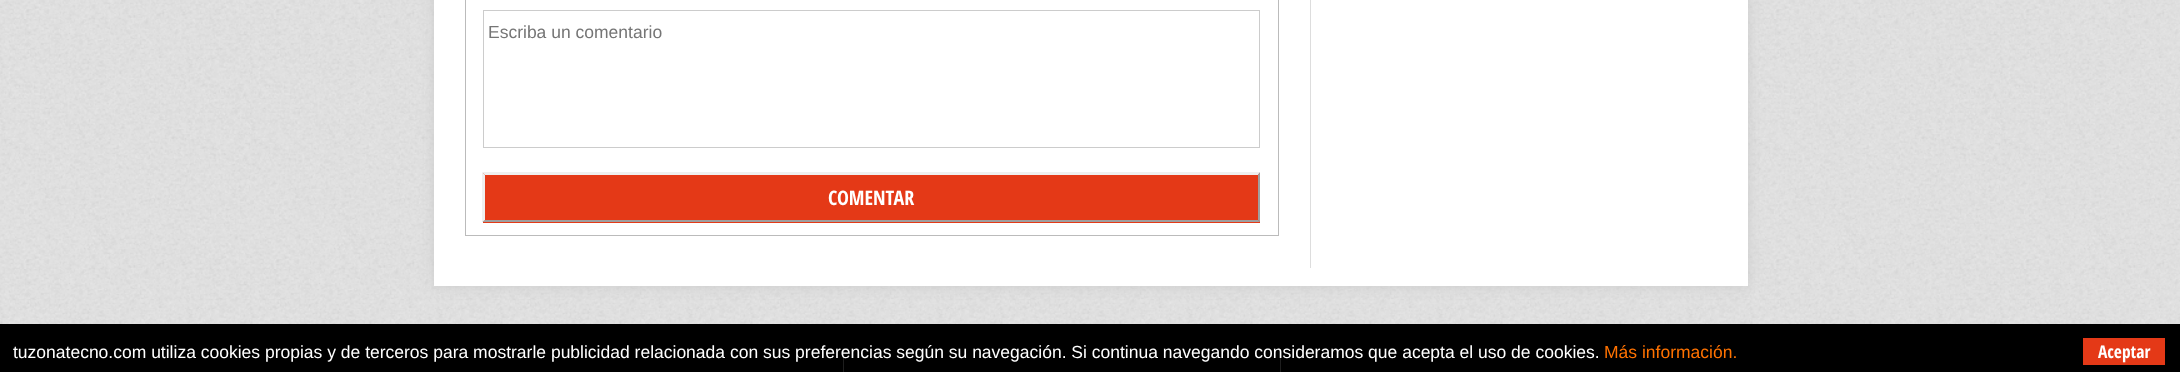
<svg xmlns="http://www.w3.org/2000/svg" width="2180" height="372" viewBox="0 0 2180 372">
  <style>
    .t1 { font: 17.5px Liberation Sans; fill: #757575; }
    .t2 { font: bold 20px Open Sans Condensed; fill: #fff; }
    .t3 { font: 17.5px Liberation Sans; fill: #fff; }
    .t4 { font: 17.5px Liberation Sans; fill: #ff7200; }
    .t5 { font: bold 17.5px Open Sans Condensed; fill: #fff; }
  </style>
  <rect width="100%" height="100%" fill="#fff"/>
  <image x="0" y="0" width="2180" height="324" href="images/1.png"/>
  <rect x="434" y="-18" width="1314" height="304" fill="#ccc" filter="blur(6px)"/>
  <rect x="434" y="0" width="1314" height="286" fill="#fff"/>
  <rect x="465.5" y="-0.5" width="813" height="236" fill="none" stroke="#bbb"/>
  <rect x="483.5" y="10.5" width="776" height="137" fill="none" stroke="#ccc"/>
  <text x="488" y="38" class="t1">Escriba un comentario</text>
  <rect x="483" y="173" width="777" height="50" fill="#e43917"/>
  <path d="M482 172H1260L1258 175H485Z" fill="#efefef"/>
  <path d="M1260 172V222L1258 220V175Z" fill="#9f9f9f"/>
  <path d="M1260 222H482L485 220H1258Z" fill="#9f9f9f"/>
  <path d="M482 222V172L485 175V220Z" fill="#efefef"/>
  <text x="828" y="205" class="t2">COMENTAR</text>
  <rect x="1310" y="0" width="1" height="268" fill="#ddd"/>
  <rect x="0" y="324" width="2180" height="48" fill="#000"/>
  <rect x="843" y="349" width="1" height="23" fill="#666"/>
  <rect x="1280" y="349" width="1" height="23" fill="#666"/>
  <rect x="843" y="349" width="438" height="23" fill="#000000b3"/>
  <text x="13" y="358" class="t3">tuzonatecno.com utiliza cookies propias y de terceros para mostrarle publicidad relacionada con sus preferencias según su navegación. Si continua navegando consideramos que acepta el uso de cookies.</text>
  <text x="1604" y="358" class="t4">Más información.</text>
  <rect x="2083" y="338" width="82" height="27" fill="#e43917"/>
  <text x="2098" y="358" class="t5">Aceptar</text>
</svg>
